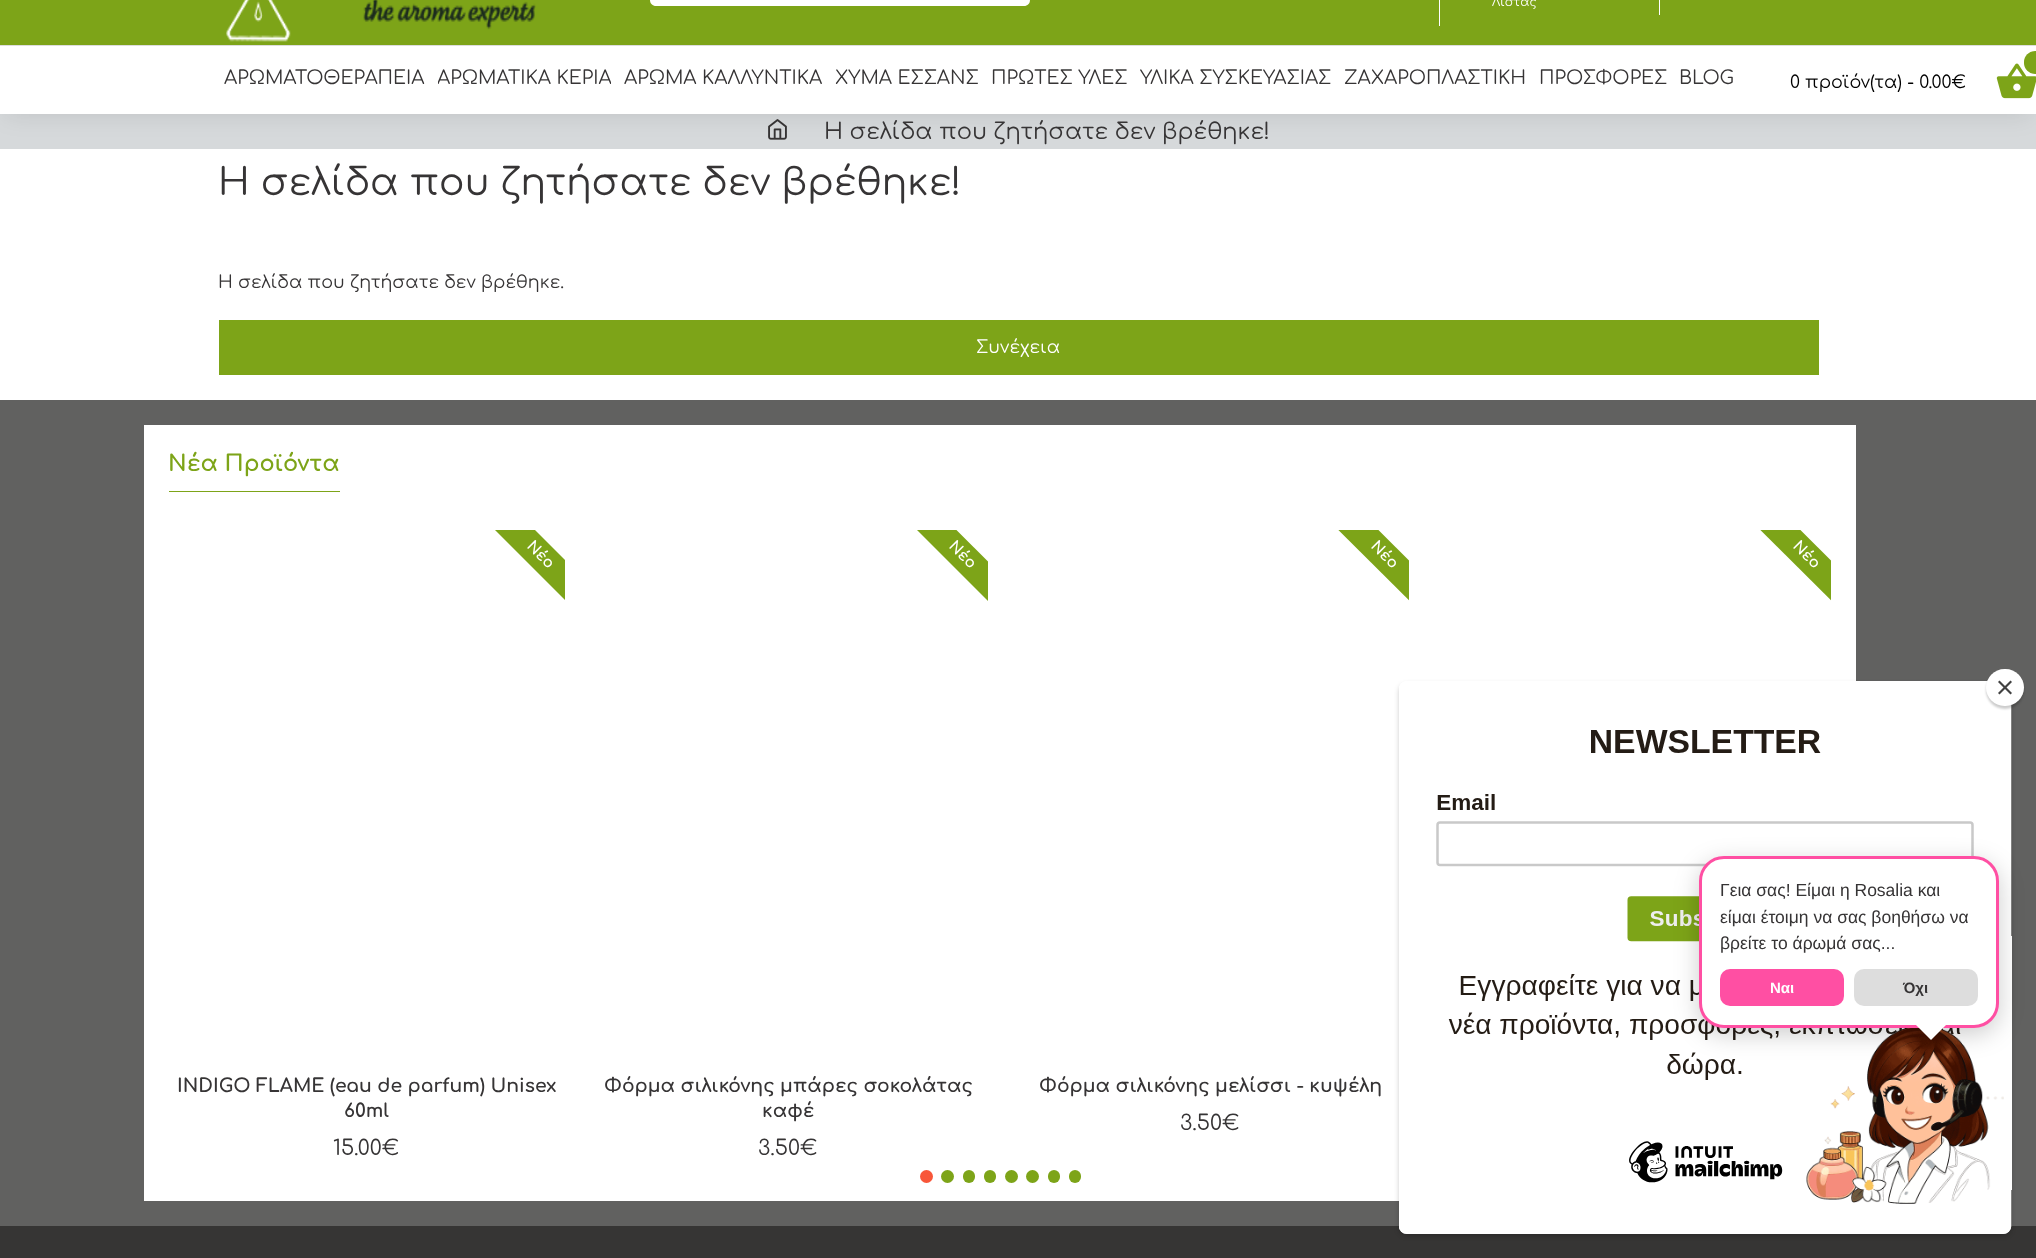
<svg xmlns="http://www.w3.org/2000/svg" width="2036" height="1258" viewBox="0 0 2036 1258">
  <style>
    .t1 { font: 12px Comfortaa; fill: #fff; }
    .t2 { font: 18.75px Comfortaa; fill: #363435; }
    .t3 { font: 17.5px Comfortaa; fill: #000; }
    .t4 { font: 22.5px Comfortaa; fill: #363435; }
    .t5 { font: 37.5px Comfortaa; fill: #363435; }
    .t6 { font: 17.5px Comfortaa; fill: #363435; }
    .t7 { font: 17.5px Comfortaa; fill: #fff; }
    .t8 { font: bold 22.5px Comfortaa; fill: #7da418; }
    .t9 { font: bold 15px Comfortaa; fill: #fff; }
    .t10 { font: bold 18.75px Comfortaa; fill: #363435; }
    .t11 { font: 21px Comfortaa; fill: #363435; }
    .t12 { font: 17.5px Liberation Sans; fill: #363435; }
    .t13 { font: bold 15px Liberation Sans; fill: #fff; }
    .t14 { font: bold 15px Liberation Sans; fill: #363435; }
  </style>
  <defs>
    <clipPath id="clip1"><rect x="438" y="65" width="173" height="29"/></clipPath>
    <clipPath id="clip2"><rect x="169" y="530" width="396" height="529"/></clipPath>
    <clipPath id="clip3"><rect x="590" y="530" width="398" height="529"/></clipPath>
    <clipPath id="clip4"><rect x="1013" y="530" width="396" height="529"/></clipPath>
    <clipPath id="clip5"><rect x="1434" y="530" width="397" height="529"/></clipPath>
  </defs>
  <rect width="100%" height="100%" fill="#fff"/>
  <rect x="0" y="114" width="2036" height="35" fill="#d6d9db"/>
  <image x="768" y="119" width="19" height="21" href="images/3.png"/>
  <rect x="6" y="-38" width="2024" height="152" fill="#0000001a" filter="blur(12.5px)"/>
  <rect x="0" y="0" width="2036" height="45" fill="#7da418"/>
  <image x="226" y="0" width="310" height="42" href="images/1.png"/>
  <path d="M656-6H738V6H656C652.5 6 650 3.5 650 0C650-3.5 652.5-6 656-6Z" fill="#fff"/>
  <rect x="738" y="0" width="236" height="6" fill="#fff"/>
  <path d="M974-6H1024C1027.5-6 1030-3.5 1030 0C1030 3.5 1027.5 6 1024 6H974Z" fill="#fff"/>
  <rect x="1439" y="0" width="1" height="26" fill="#fff"/>
  <text x="1492" y="6" class="t1">Λίστας</text>
  <rect x="1659" y="0" width="1" height="15" fill="#fff"/>
  <rect x="0" y="46" width="2036" height="68" fill="#fff"/>
  <rect x="0" y="45" width="2036" height="1" fill="#ddd"/>
  <text x="224" y="84" class="t2">ΑΡΩΜΑΤΟΘΕΡΑΠΕΙΑ</text>
  <g clip-path="url(#clip1)">
    <text x="437" y="84" class="t2">ΑΡΩΜΑΤΙΚΑ ΚΕΡΙΑ</text>
  </g>
  <text x="624" y="84" class="t2">ΑΡΩΜΑ ΚΑΛΛΥΝΤΙΚΑ</text>
  <text x="835" y="84" class="t2">ΧΥΜΑ ΕΣΣΑΝΣ</text>
  <text x="991" y="84" class="t2">ΠΡΩΤΕΣ ΥΛΕΣ</text>
  <text x="1140" y="84" class="t2">ΥΛΙΚΑ ΣΥΣΚΕΥΑΣΙΑΣ</text>
  <text x="1344" y="84" class="t2">ΖΑΧΑΡΟΠΛΑΣΤΙΚΗ</text>
  <text x="1539" y="84" class="t2">ΠΡΟΣΦΟΡΕΣ</text>
  <text x="1679" y="84" class="t2">BLOG</text>
  <image x="1996" y="63" width="40" height="36" href="images/2.png"/>
  <rect x="2024" y="51" width="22" height="23" rx="11" fill="#7da418"/>
  <text x="1790" y="88" class="t3">0 προϊόν(τα) - 0.00€</text>
  <text x="824" y="139" class="t4">Η σελίδα που ζητήσατε δεν βρέθηκε!</text>
  <text x="218" y="195" class="t5">Η σελίδα που ζητήσατε δεν βρέθηκε!</text>
  <text x="218" y="288" class="t6">Η σελίδα που ζητήσατε δεν βρέθηκε.</text>
  <rect x="219" y="320" width="1600" height="55" fill="#7da418"/>
  <text x="976" y="353" class="t7">Συνέχεια</text>
  <rect x="0" y="400" width="2036" height="826" fill="#616160"/>
  <rect x="144" y="425" width="1712" height="776" fill="#fff"/>
  <rect x="169" y="491" width="171" height="1" fill="#7da418"/>
  <text x="168" y="471" class="t8">Νέα Προϊόντα</text>
  <g clip-path="url(#clip2)">
    <path d="M431 426L669 664L649 684L411 446Z" fill="#7da418"/>
  </g>
  <text x="526" y="547" transform="rotate(45 526 547)" class="t9">Νέο</text>
  <text x="177" y="1092" class="t10">INDIGO FLAME (eau de parfum) Unisex</text>
  <text x="344" y="1117" class="t10">60ml</text>
  <text x="333" y="1155" class="t11">15.00€</text>
  <g clip-path="url(#clip3)">
    <path d="M852 426L1091 664L1071 684L833 446Z" fill="#7da418"/>
  </g>
  <text x="948" y="547" transform="rotate(45 948 547)" class="t9">Νέο</text>
  <text x="604" y="1092" class="t10">Φόρμα σιλικόνης μπάρες σοκολάτας</text>
  <text x="762" y="1117" class="t10">καφέ</text>
  <text x="758" y="1155" class="t11">3.50€</text>
  <g clip-path="url(#clip4)">
    <path d="M1274 426L1513 664L1493 684L1254 446Z" fill="#7da418"/>
  </g>
  <text x="1370" y="547" transform="rotate(45 1370 547)" class="t9">Νέο</text>
  <text x="1039" y="1092" class="t10">Φόρμα σιλικόνης μελίσσι - κυψέλη</text>
  <text x="1180" y="1130" class="t11">3.50€</text>
  <g clip-path="url(#clip5)">
    <path d="M1696 426L1935 664L1915 684L1676 446Z" fill="#7da418"/>
  </g>
  <text x="1792" y="547" transform="rotate(45 1792 547)" class="t9">Νέο</text>
  <circle cx="926.5" cy="1176.5" r="6.5" fill="#f85639"/>
  <circle cx="947.5" cy="1176.5" r="6.5" fill="#7da418"/>
  <rect x="963" y="1170" width="12" height="13" rx="6" fill="#7da418"/>
  <rect x="984" y="1170" width="12" height="13" rx="6" fill="#7da418"/>
  <circle cx="1011.5" cy="1176.5" r="6.5" fill="#7da418"/>
  <circle cx="1032.5" cy="1176.5" r="6.5" fill="#7da418"/>
  <rect x="1048" y="1170" width="12" height="13" rx="6" fill="#7da418"/>
  <rect x="1069" y="1170" width="12" height="13" rx="6" fill="#7da418"/>
  <rect x="0" y="1226" width="2036" height="32" fill="#363534"/>
  <rect x="1399" y="684" width="612" height="552" rx="8" fill="#00000033" filter="blur(2.5px)"/>
  <rect x="1399" y="681" width="612" height="553" rx="8" fill="#fff"/>
  <image x="1399" y="681" width="613" height="553" href="images/4.png"/>
  <rect x="1986" y="671" width="38" height="38" rx="19" fill="#00000033" filter="blur(1px)"/>
  <rect x="1986" y="669" width="38" height="37" rx="18.5" fill="#fff"/>
  <path d="M2010.5 680.5L2012 682L1999.5 694.5L1998 693Z" fill="#414141"/>
  <path d="M1998 682L1999.5 680.5L2012 693L2010.5 694.5Z" fill="#414141"/>
  <image x="1806" y="1028" width="198" height="176" href="images/5.png"/>
  <rect x="1699" y="863" width="300" height="171" rx="25" fill="#00000033" filter="blur(12.5px)"/>
  <rect x="1700.5" y="857.5" width="297" height="169" rx="23.5" fill="#fff" stroke="#ff4fa3" stroke-width="3"/>
  <text x="1720" y="896" class="t12">Γεια σας! Είμαι η Rosalia και</text>
  <text x="1720" y="923" class="t12">είμαι έτοιμη να σας βοηθήσω να</text>
  <text x="1720" y="949" class="t12">βρείτε το άρωμά σας...</text>
  <rect x="1720" y="969" width="124" height="37" rx="10" fill="#ff4fa3"/>
  <text x="1770" y="993" class="t13">Ναι</text>
  <rect x="1854" y="969" width="124" height="37" rx="10" fill="#ddd"/>
  <text x="1903" y="993" class="t14">Όχι</text>
  <path d="M1916 1025H1946L1931 1040Z" fill="#fff"/>
</svg>
